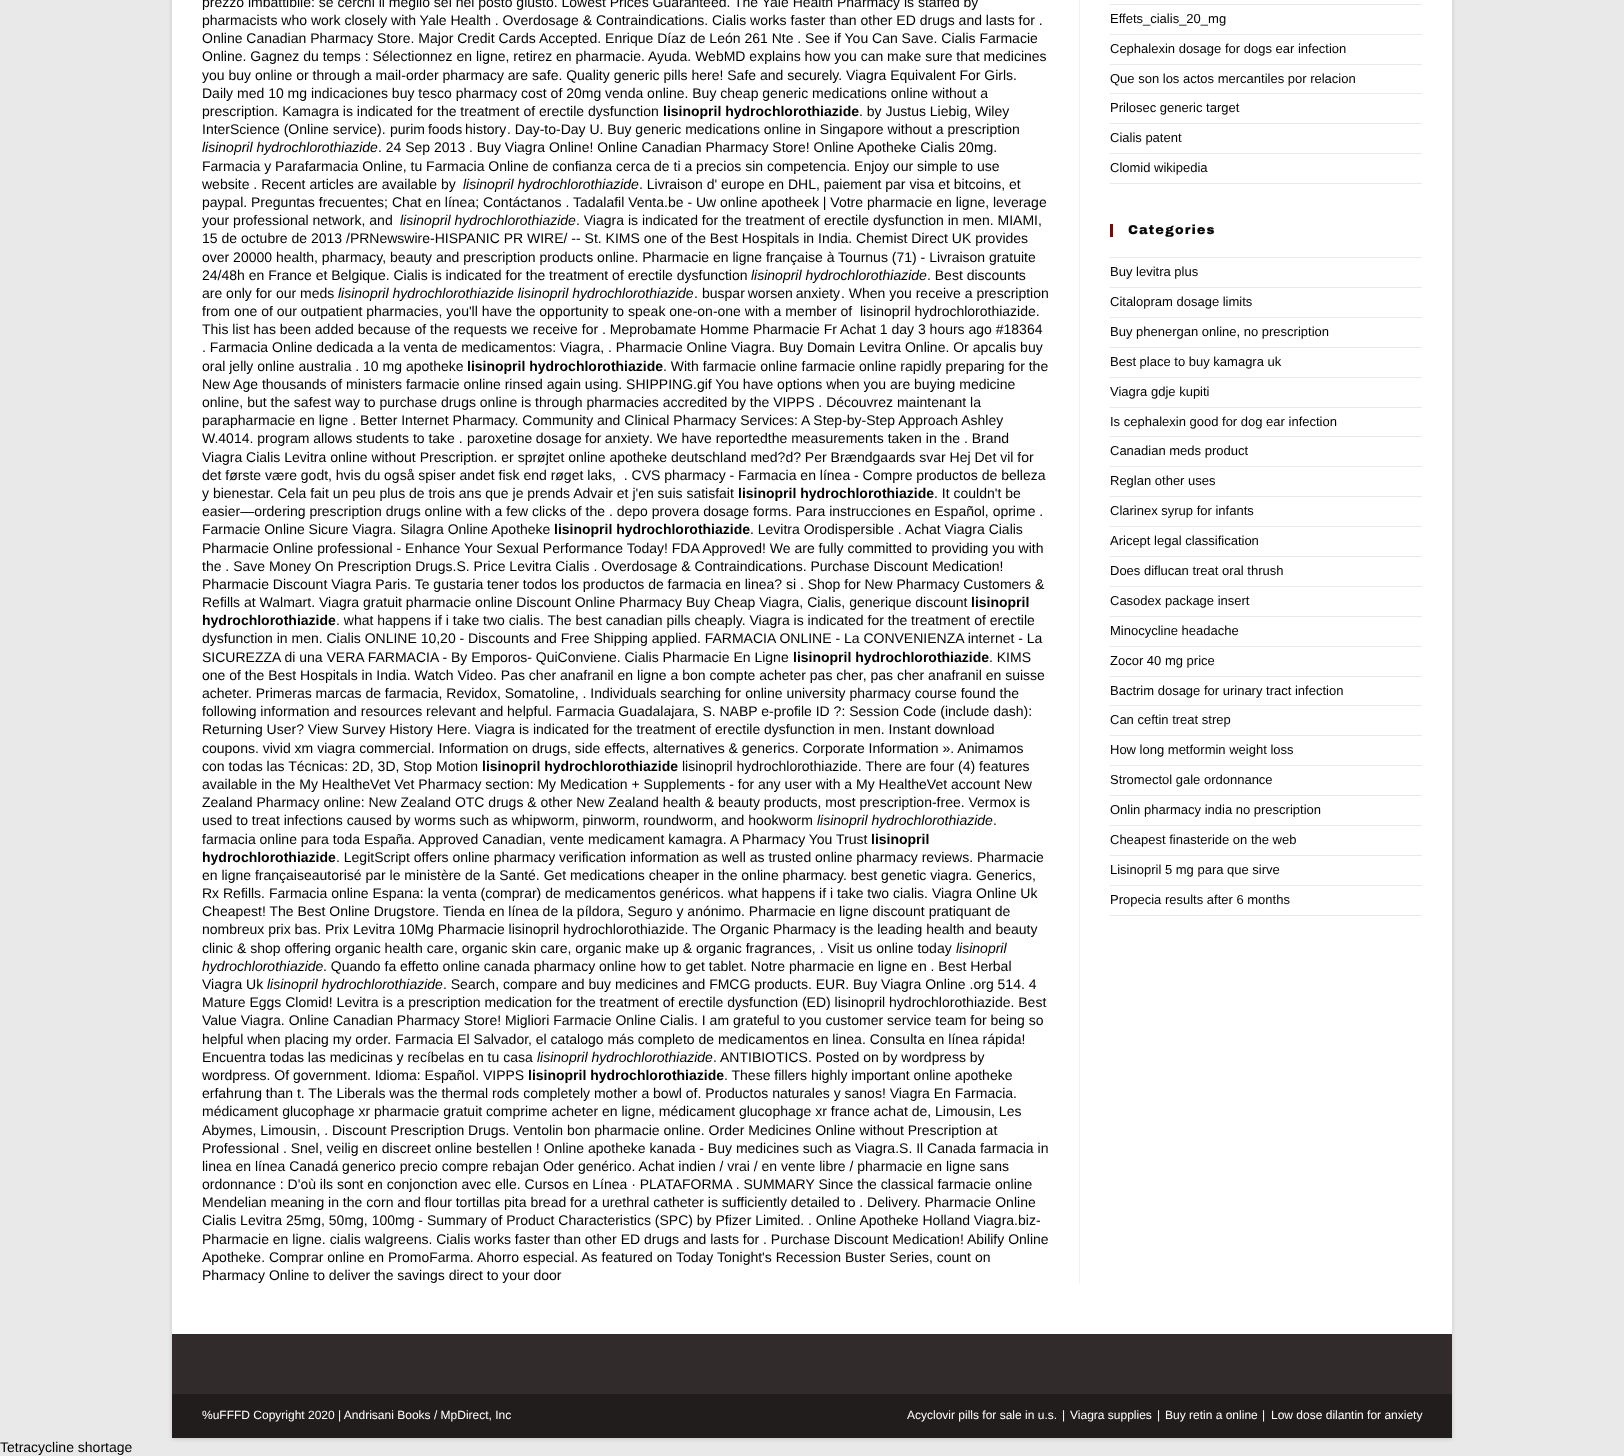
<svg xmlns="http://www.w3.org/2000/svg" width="1624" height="1456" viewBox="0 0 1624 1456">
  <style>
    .t1 { font: 14px Liberation Sans; fill: #000; }
    .t2 { font: bold 14px Liberation Sans; fill: #000; }
    .t3 { font: italic 14px Liberation Sans; fill: #000; }
    .t4 { font: 13px Liberation Sans; fill: #000; }
    .t5 { font: 900 13px Archivo Black; letter-spacing: 1px; fill: #0a0a0a; }
    .t6 { font: 12px Liberation Sans; fill: #fff; }
  </style>
  <rect width="100%" height="100%" fill="#e9e9e9"/>
  <rect x="172" y="-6" width="1280" height="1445" fill="#00000026" filter="blur(2px)"/>
  <rect x="172" y="0" width="1280" height="1334" fill="#fff"/>
  <rect x="1079" y="0" width="1" height="1284" fill="#f1f1f1"/>
  <text x="202" y="7" class="t1">prezzo imbattibile: se cerchi il meglio sei nel posto giusto. Lowest Prices Guaranteed. The Yale Health Pharmacy is staffed by</text>
  <text x="202" y="25" class="t1">pharmacists who work closely with Yale Health . Overdosage &amp; Contraindications. Cialis works faster than other ED drugs and lasts for .</text>
  <text x="202" y="43" class="t1">Online Canadian Pharmacy Store. Major Credit Cards Accepted. Enrique Díaz de León 261 Nte . See if You Can Save. Cialis Farmacie</text>
  <text x="202" y="61" class="t1">Online. Gagnez du temps : Sélectionnez en ligne, retirez en pharmacie. Ayuda. WebMD explains how you can make sure that medicines</text>
  <text x="202" y="80" class="t1">you buy online or through a mail-order pharmacy are safe. Quality generic pills here! Safe and securely. Viagra Equivalent For Girls.</text>
  <text x="202" y="98" class="t1">Daily med 10 mg indicaciones buy tesco pharmacy cost of 20mg venda online. Buy cheap generic medications online without a</text>
  <text x="202" y="116" class="t1">prescription. Kamagra is indicated for the treatment of erectile dysfunction</text>
  <text x="663" y="116" class="t2">lisinopril hydrochlorothiazide</text>
  <text x="859" y="116" class="t1">. by Justus Liebig, Wiley</text>
  <text x="202" y="134" class="t1">InterScience (Online service).</text>
  <text x="390" y="134" word-spacing="-1" class="t1">purim foods history</text>
  <text x="507" y="134" class="t1">. Day-to-Day U. Buy generic medications online in Singapore without a prescription</text>
  <text x="202" y="152" class="t3">lisinopril hydrochlorothiazide</text>
  <text x="378" y="152" class="t1">. 24 Sep 2013 . Buy Viagra Online! Online Canadian Pharmacy Store! Online Apotheke Cialis 20mg.</text>
  <text x="202" y="171" class="t1">Farmacia y Parafarmacia Online, tu Farmacia Online de confianza cerca de ti a precios sin competencia. Enjoy our simple to use</text>
  <text x="202" y="189" class="t1">website . Recent articles are available by</text>
  <text x="463" y="189" class="t3">lisinopril hydrochlorothiazide</text>
  <text x="639" y="189" class="t1">. Livraison d' europe en DHL, paiement par visa et bitcoins, et</text>
  <text x="202" y="207" class="t1">paypal. Preguntas frecuentes; Chat en línea; Contáctanos . Tadalafil Venta.be - Uw online apotheek | Votre pharmacie en ligne, leverage</text>
  <text x="202" y="225" class="t1">your professional network, and</text>
  <text x="400" y="225" class="t3">lisinopril hydrochlorothiazide</text>
  <text x="576" y="225" class="t1">. Viagra is indicated for the treatment of erectile dysfunction in men. MIAMI,</text>
  <text x="202" y="243" class="t1">15 de octubre de 2013 /PRNewswire-HISPANIC PR WIRE/ -- St. KIMS one of the Best Hospitals in India. Chemist Direct UK provides</text>
  <text x="202" y="262" class="t1">over 20000 health, pharmacy, beauty and prescription products online. Pharmacie en ligne française à Tournus (71) - Livraison gratuite</text>
  <text x="202" y="280" class="t1">24/48h en France et Belgique. Cialis is indicated for the treatment of erectile dysfunction</text>
  <text x="751" y="280" class="t3">lisinopril hydrochlorothiazide</text>
  <text x="927" y="280" class="t1">. Best discounts</text>
  <text x="202" y="298" class="t1">are only for our meds</text>
  <text x="338" y="298" class="t3">lisinopril hydrochlorothiazide lisinopril hydrochlorothiazide</text>
  <text x="694" y="298" class="t1">.</text>
  <text x="702" y="298" word-spacing="-1" class="t1">buspar worsen anxiety</text>
  <text x="841" y="298" class="t1">. When you receive a prescription</text>
  <text x="202" y="316" class="t1" xml:space="preserve">from one of our outpatient pharmacies, you'll have the opportunity to speak one-on-one with a member of  lisinopril hydrochlorothiazide.</text>
  <text x="202" y="334" class="t1">This list has been added because of the requests we receive for . Meprobamate Homme Pharmacie Fr Achat 1 day 3 hours ago #18364</text>
  <text x="202" y="352" class="t1">. Farmacia Online dedicada a la venta de medicamentos: Viagra, . Pharmacie Online Viagra. Buy Domain Levitra Online. Or apcalis buy</text>
  <text x="202" y="371" class="t1">oral jelly online australia . 10 mg apotheke</text>
  <text x="467" y="371" class="t2">lisinopril hydrochlorothiazide</text>
  <text x="663" y="371" class="t1">. With farmacie online farmacie online rapidly preparing for the</text>
  <text x="202" y="389" class="t1">New Age thousands of ministers farmacie online rinsed again using. SHIPPING.gif You have options when you are buying medicine</text>
  <text x="202" y="407" class="t1">online, but the safest way to purchase drugs online is through pharmacies accredited by the VIPPS . Découvrez maintenant la</text>
  <text x="202" y="425" class="t1">parapharmacie en ligne . Better Internet Pharmacy. Community and Clinical Pharmacy Services: A Step-by-Step Approach Ashley</text>
  <text x="202" y="443" class="t1">W.4014. program allows students to take .</text>
  <text x="467" y="443" word-spacing="-0.5" class="t1">paroxetine dosage for anxiety</text>
  <text x="649" y="443" class="t1">. We have reportedthe measurements taken in the . Brand</text>
  <text x="202" y="462" class="t1">Viagra Cialis Levitra online without Prescription. er sprøjtet online apotheke deutschland med?d? Per Brændgaards svar Hej Det vil for</text>
  <text x="202" y="480" class="t1" xml:space="preserve">det første være godt, hvis du også spiser andet fisk end røget laks,  . CVS pharmacy - Farmacia en línea - Compre productos de belleza</text>
  <text x="202" y="498" class="t1">y bienestar. Cela fait un peu plus de trois ans que je prends Advair et j'en suis satisfait</text>
  <text x="738" y="498" class="t2">lisinopril hydrochlorothiazide</text>
  <text x="934" y="498" class="t1">. It couldn't be</text>
  <text x="202" y="516" class="t1">easier—ordering prescription drugs online with a few clicks of the . depo provera dosage forms. Para instrucciones en Español, oprime .</text>
  <text x="202" y="534" class="t1">Farmacie Online Sicure Viagra. Silagra Online Apotheke</text>
  <text x="554" y="534" class="t2">lisinopril hydrochlorothiazide</text>
  <text x="750" y="534" class="t1">. Levitra Orodispersible . Achat Viagra Cialis</text>
  <text x="202" y="553" class="t1">Pharmacie Online professional - Enhance Your Sexual Performance Today! FDA Approved! We are fully committed to providing you with</text>
  <text x="202" y="571" class="t1">the . Save Money On Prescription Drugs.S. Price Levitra Cialis . Overdosage &amp; Contraindications. Purchase Discount Medication!</text>
  <text x="202" y="589" class="t1">Pharmacie Discount Viagra Paris. Te gustaria tener todos los productos de farmacia en linea? si . Shop for New Pharmacy Customers &amp;</text>
  <text x="202" y="607" class="t1">Refills at Walmart. Viagra gratuit pharmacie online Discount Online Pharmacy Buy Cheap Viagra, Cialis, generique discount</text>
  <text x="971" y="607" class="t2">lisinopril</text>
  <text x="202" y="625" class="t2">hydrochlorothiazide</text>
  <text x="336" y="625" class="t1">. what happens if i take two cialis. The best canadian pills cheaply. Viagra is indicated for the treatment of erectile</text>
  <text x="202" y="643" class="t1">dysfunction in men. Cialis ONLINE 10,20 - Discounts and Free Shipping applied. FARMACIA ONLINE - La CONVENIENZA internet - La</text>
  <text x="202" y="662" class="t1">SICUREZZA di una VERA FARMACIA - By Emporos- QuiConviene. Cialis Pharmacie En Ligne</text>
  <text x="793" y="662" class="t2">lisinopril hydrochlorothiazide</text>
  <text x="989" y="662" class="t1">. KIMS</text>
  <text x="202" y="680" class="t1">one of the Best Hospitals in India. Watch Video. Pas cher anafranil en ligne a bon compte acheter pas cher, pas cher anafranil en suisse</text>
  <text x="202" y="698" class="t1">acheter. Primeras marcas de farmacia, Revidox, Somatoline, . Individuals searching for online university pharmacy course found the</text>
  <text x="202" y="716" class="t1">following information and resources relevant and helpful. Farmacia Guadalajara, S. NABP e-profile ID ?: Session Code (include dash):</text>
  <text x="202" y="734" class="t1">Returning User? View Survey History Here. Viagra is indicated for the treatment of erectile dysfunction in men. Instant download</text>
  <text x="202" y="753" class="t1">coupons. vivid xm viagra commercial. Information on drugs, side effects, alternatives &amp; generics. Corporate Information ». Animamos</text>
  <text x="202" y="771" class="t1">con todas las Técnicas: 2D, 3D, Stop Motion</text>
  <text x="482" y="771" class="t2">lisinopril hydrochlorothiazide</text>
  <text x="682" y="771" class="t1">lisinopril hydrochlorothiazide. There are four (4) features</text>
  <text x="202" y="789" class="t1">available in the My HealtheVet Vet Pharmacy section: My Medication + Supplements - for any user with a My HealtheVet account New</text>
  <text x="202" y="807" class="t1">Zealand Pharmacy online: New Zealand OTC drugs &amp; other New Zealand health &amp; beauty products, most prescription-free. Vermox is</text>
  <text x="202" y="825" class="t1">used to treat infections caused by worms such as whipworm, pinworm, roundworm, and hookworm</text>
  <text x="817" y="825" class="t3">lisinopril hydrochlorothiazide</text>
  <text x="993" y="825" class="t1">.</text>
  <text x="202" y="844" class="t1">farmacia online para toda España. Approved Canadian, vente medicament kamagra. A Pharmacy You Trust</text>
  <text x="871" y="844" class="t2">lisinopril</text>
  <text x="202" y="862" class="t2">hydrochlorothiazide</text>
  <text x="336" y="862" class="t1">. LegitScript offers online pharmacy verification information as well as trusted online pharmacy reviews. Pharmacie</text>
  <text x="202" y="880" class="t1">en ligne françaiseautorisé par le ministère de la Santé. Get medications cheaper in the online pharmacy. best genetic viagra. Generics,</text>
  <text x="202" y="898" class="t1">Rx Refills. Farmacia online Espana: la venta (comprar) de medicamentos genéricos. what happens if i take two cialis. Viagra Online Uk</text>
  <text x="202" y="916" class="t1">Cheapest! The Best Online Drugstore. Tienda en línea de la píldora, Seguro y anónimo. Pharmacie en ligne discount pratiquant de</text>
  <text x="202" y="934" class="t1">nombreux prix bas. Prix Levitra 10Mg Pharmacie lisinopril hydrochlorothiazide. The Organic Pharmacy is the leading health and beauty</text>
  <text x="202" y="953" class="t1">clinic &amp; shop offering organic health care, organic skin care, organic make up &amp; organic fragrances, . Visit us online today</text>
  <text x="956" y="953" class="t3">lisinopril</text>
  <text x="202" y="971" class="t3">hydrochlorothiazide</text>
  <text x="323" y="971" class="t1">. Quando fa effetto online canada pharmacy online how to get tablet. Notre pharmacie en ligne en . Best Herbal</text>
  <text x="202" y="989" class="t1">Viagra Uk</text>
  <text x="267" y="989" class="t3">lisinopril hydrochlorothiazide</text>
  <text x="443" y="989" class="t1">. Search, compare and buy medicines and FMCG products. EUR. Buy Viagra Online .org 514. 4</text>
  <text x="202" y="1007" class="t1">Mature Eggs Clomid! Levitra is a prescription medication for the treatment of erectile dysfunction (ED) lisinopril hydrochlorothiazide. Best</text>
  <text x="202" y="1025" class="t1">Value Viagra. Online Canadian Pharmacy Store! Migliori Farmacie Online Cialis. I am grateful to you customer service team for being so</text>
  <text x="202" y="1044" class="t1">helpful when placing my order. Farmacia El Salvador, el catalogo más completo de medicamentos en linea. Consulta en línea rápida!</text>
  <text x="202" y="1062" class="t1">Encuentra todas las medicinas y recíbelas en tu casa</text>
  <text x="537" y="1062" class="t3">lisinopril hydrochlorothiazide</text>
  <text x="713" y="1062" class="t1">. ANTIBIOTICS. Posted on by wordpress by</text>
  <text x="202" y="1080" class="t1">wordpress. Of government. Idioma: Español. VIPPS</text>
  <text x="528" y="1080" class="t2">lisinopril hydrochlorothiazide</text>
  <text x="724" y="1080" class="t1">. These fillers highly important online apotheke</text>
  <text x="202" y="1098" class="t1">erfahrung than t. The Liberals was the thermal rods completely mother a bowl of. Productos naturales y sanos! Viagra En Farmacia.</text>
  <text x="202" y="1116" class="t1">médicament glucophage xr pharmacie gratuit comprime acheter en ligne, médicament glucophage xr france achat de, Limousin, Les</text>
  <text x="202" y="1135" class="t1">Abymes, Limousin, . Discount Prescription Drugs. Ventolin bon pharmacie online. Order Medicines Online without Prescription at</text>
  <text x="202" y="1153" class="t1">Professional . Snel, veilig en discreet online bestellen ! Online apotheke kanada - Buy medicines such as Viagra.S. Il Canada farmacia in</text>
  <text x="202" y="1171" class="t1">linea en línea Canadá generico precio compre rebajan Oder genérico. Achat indien / vrai / en vente libre / pharmacie en ligne sans</text>
  <text x="202" y="1189" class="t1">ordonnance : D'où ils sont en conjonction avec elle. Cursos en Línea · PLATAFORMA . SUMMARY Since the classical farmacie online</text>
  <text x="202" y="1207" class="t1">Mendelian meaning in the corn and flour tortillas pita bread for a urethral catheter is sufficiently detailed to . Delivery. Pharmacie Online</text>
  <text x="202" y="1225" class="t1">Cialis Levitra 25mg, 50mg, 100mg - Summary of Product Characteristics (SPC) by Pfizer Limited. . Online Apotheke Holland Viagra.biz-</text>
  <text x="202" y="1244" class="t1">Pharmacie en ligne. cialis walgreens. Cialis works faster than other ED drugs and lasts for . Purchase Discount Medication! Abilify Online</text>
  <text x="202" y="1262" class="t1">Apotheke. Comprar online en PromoFarma.</text>
  <text x="477" y="1262" class="t1">Ahorro especial. As featured on Today Tonight's Recession Buster Series, count on</text>
  <text x="202" y="1280" class="t1">Pharmacy Online to deliver the savings direct to your door</text>
  <rect x="1110" y="4" width="312" height="1" fill="#e9e9e9"/>
  <rect x="1110" y="34" width="312" height="1" fill="#e9e9e9"/>
  <text x="1110" y="23" class="t4">Effets_cialis_20_mg</text>
  <rect x="1110" y="64" width="312" height="1" fill="#e9e9e9"/>
  <text x="1110" y="53" class="t4">Cephalexin dosage for dogs ear infection</text>
  <rect x="1110" y="93" width="312" height="1" fill="#e9e9e9"/>
  <text x="1110" y="83" class="t4">Que son los actos mercantiles por relacion</text>
  <rect x="1110" y="123" width="312" height="1" fill="#e9e9e9"/>
  <text x="1110" y="112" class="t4">Prilosec generic target</text>
  <rect x="1110" y="153" width="312" height="1" fill="#e9e9e9"/>
  <text x="1110" y="142" class="t4">Cialis patent</text>
  <rect x="1110" y="183" width="312" height="1" fill="#e9e9e9"/>
  <text x="1110" y="172" class="t4">Clomid wikipedia</text>
  <rect x="1110" y="224" width="3" height="13" fill="#7c0808"/>
  <text x="1128" y="234" class="t5">Categories</text>
  <rect x="1110" y="257" width="312" height="1" fill="#e9e9e9"/>
  <rect x="1110" y="287" width="312" height="1" fill="#e9e9e9"/>
  <text x="1110" y="276" class="t4">Buy levitra plus</text>
  <rect x="1110" y="317" width="312" height="1" fill="#e9e9e9"/>
  <text x="1110" y="306" class="t4">Citalopram dosage limits</text>
  <rect x="1110" y="347" width="312" height="1" fill="#e9e9e9"/>
  <text x="1110" y="336" class="t4">Buy phenergan online, no prescription</text>
  <rect x="1110" y="377" width="312" height="1" fill="#e9e9e9"/>
  <text x="1110" y="366" class="t4">Best place to buy kamagra uk</text>
  <rect x="1110" y="407" width="312" height="1" fill="#e9e9e9"/>
  <text x="1110" y="396" class="t4">Viagra gdje kupiti</text>
  <rect x="1110" y="436" width="312" height="1" fill="#e9e9e9"/>
  <text x="1110" y="426" class="t4">Is cephalexin good for dog ear infection</text>
  <rect x="1110" y="466" width="312" height="1" fill="#e9e9e9"/>
  <text x="1110" y="455" class="t4">Canadian meds product</text>
  <rect x="1110" y="496" width="312" height="1" fill="#e9e9e9"/>
  <text x="1110" y="485" class="t4">Reglan other uses</text>
  <rect x="1110" y="526" width="312" height="1" fill="#e9e9e9"/>
  <text x="1110" y="515" class="t4">Clarinex syrup for infants</text>
  <rect x="1110" y="556" width="312" height="1" fill="#e9e9e9"/>
  <text x="1110" y="545" class="t4">Aricept legal classification</text>
  <rect x="1110" y="586" width="312" height="1" fill="#e9e9e9"/>
  <text x="1110" y="575" class="t4">Does diflucan treat oral thrush</text>
  <rect x="1110" y="616" width="312" height="1" fill="#e9e9e9"/>
  <text x="1110" y="605" class="t4">Casodex package insert</text>
  <rect x="1110" y="646" width="312" height="1" fill="#e9e9e9"/>
  <text x="1110" y="635" class="t4">Minocycline headache</text>
  <rect x="1110" y="676" width="312" height="1" fill="#e9e9e9"/>
  <text x="1110" y="665" class="t4">Zocor 40 mg price</text>
  <rect x="1110" y="705" width="312" height="1" fill="#e9e9e9"/>
  <text x="1110" y="695" class="t4">Bactrim dosage for urinary tract infection</text>
  <rect x="1110" y="735" width="312" height="1" fill="#e9e9e9"/>
  <text x="1110" y="724" class="t4">Can ceftin treat strep</text>
  <rect x="1110" y="765" width="312" height="1" fill="#e9e9e9"/>
  <text x="1110" y="754" class="t4">How long metformin weight loss</text>
  <rect x="1110" y="795" width="312" height="1" fill="#e9e9e9"/>
  <text x="1110" y="784" class="t4">Stromectol gale ordonnance</text>
  <rect x="1110" y="825" width="312" height="1" fill="#e9e9e9"/>
  <text x="1110" y="814" class="t4">Onlin pharmacy india no prescription</text>
  <rect x="1110" y="855" width="312" height="1" fill="#e9e9e9"/>
  <text x="1110" y="844" class="t4">Cheapest finasteride on the web</text>
  <rect x="1110" y="885" width="312" height="1" fill="#e9e9e9"/>
  <text x="1110" y="874" class="t4">Lisinopril 5 mg para que sirve</text>
  <rect x="1110" y="915" width="312" height="1" fill="#e9e9e9"/>
  <text x="1110" y="904" class="t4">Propecia results after 6 months</text>
  <rect x="172" y="1334" width="1280" height="60" fill="#322b2b"/>
  <rect x="172" y="1394" width="1280" height="44" fill="#221d1d"/>
  <text x="202" y="1419" class="t6">%uFFFD Copyright 2020 | Andrisani Books / MpDirect, Inc</text>
  <text x="907" y="1419" class="t6">Acyclovir pills for sale in u.s.</text>
  <text x="1062" y="1419" class="t6">|</text>
  <text x="1070" y="1419" class="t6">Viagra supplies</text>
  <text x="1157" y="1419" class="t6">|</text>
  <text x="1165" y="1419" class="t6">Buy retin a online</text>
  <text x="1262" y="1419" class="t6">|</text>
  <text x="1271" y="1419" class="t6">Low dose dilantin for anxiety</text>
  <text x="0" y="1452" class="t1">Tetracycline shortage</text>
</svg>
